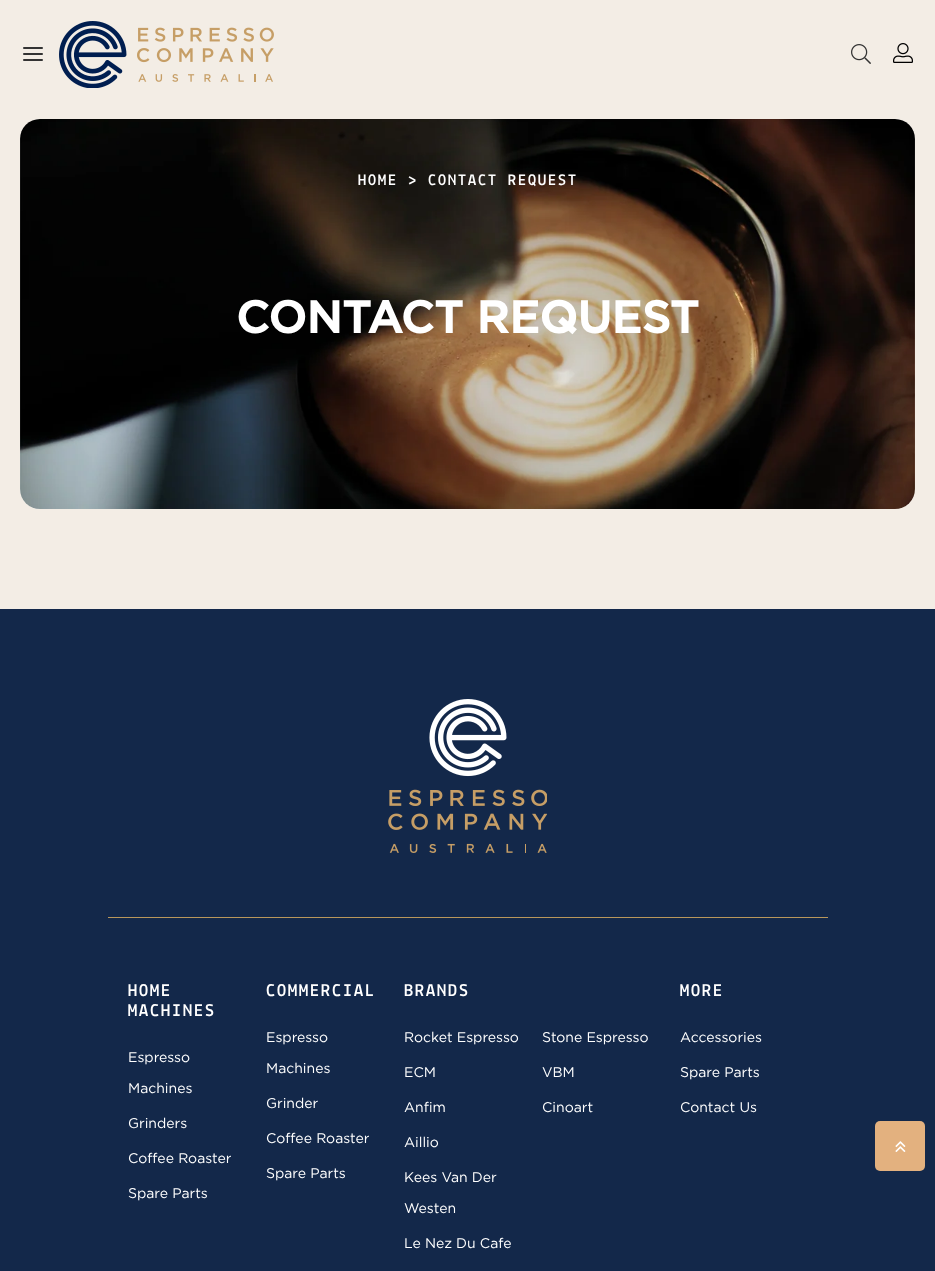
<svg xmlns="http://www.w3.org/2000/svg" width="935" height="1271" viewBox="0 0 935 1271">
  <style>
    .t1 { font: bold 16px Lekton; letter-spacing: 2px; fill: #fff; }
    .t2 { font: bold 45px Gotham; fill: #fff; }
    .t3 { font: bold 18px Lekton; letter-spacing: 2px; fill: #fff; }
    .t4 { font: 14px Gotham; fill: #fff; }
  </style>
  <rect width="100%" height="100%" fill="#f3ede5"/>
  <image x="23" y="47" width="20" height="14" href="images/1.png"/>
  <image x="59" y="21" width="215" height="67" href="images/2.png"/>
  <image x="851" y="44" width="20" height="20" href="images/3.png"/>
  <image x="893" y="43" width="20" height="20" href="images/4.png"/>
  <rect x="20" y="119" width="895" height="390" rx="20" fill="#fff"/>
  <image x="20" y="119" width="895" height="390" href="images/5.png"/>
  <text x="358" y="185" class="t1">HOME &gt; CONTACT REQUEST</text>
  <text x="236" y="333" class="t2">CONTACT REQUEST</text>
  <rect x="0" y="609" width="935" height="662" fill="#13284a"/>
  <rect x="108" y="917" width="720" height="1" fill="#b9975b"/>
  <image x="388" y="699" width="159" height="154" href="images/6.png"/>
  <text x="128" y="996" class="t3">HOME</text>
  <text x="128" y="1016" class="t3">MACHINES</text>
  <text x="128" y="1062" class="t4">Espresso</text>
  <text x="128" y="1093" class="t4">Machines</text>
  <text x="128" y="1128" class="t4">Grinders</text>
  <text x="128" y="1163" class="t4">Coffee Roaster</text>
  <text x="128" y="1198" class="t4">Spare Parts</text>
  <text x="266" y="996" class="t3">COMMERCIAL</text>
  <text x="266" y="1042" class="t4">Espresso</text>
  <text x="266" y="1073" class="t4">Machines</text>
  <text x="266" y="1108" class="t4">Grinder</text>
  <text x="266" y="1143" class="t4">Coffee Roaster</text>
  <text x="266" y="1178" class="t4">Spare Parts</text>
  <text x="404" y="996" class="t3">BRANDS</text>
  <text x="404" y="1042" class="t4">Rocket Espresso</text>
  <text x="404" y="1077" class="t4">ECM</text>
  <text x="404" y="1112" class="t4">Anfim</text>
  <text x="404" y="1147" class="t4">Aillio</text>
  <text x="404" y="1182" class="t4">Kees Van Der</text>
  <text x="404" y="1213" class="t4">Westen</text>
  <text x="404" y="1248" class="t4">Le Nez Du Cafe</text>
  <text x="542" y="1042" class="t4">Stone Espresso</text>
  <text x="542" y="1077" class="t4">VBM</text>
  <text x="542" y="1112" class="t4">Cinoart</text>
  <text x="680" y="996" class="t3">MORE</text>
  <text x="680" y="1042" class="t4">Accessories</text>
  <text x="680" y="1077" class="t4">Spare Parts</text>
  <text x="680" y="1112" class="t4">Contact Us</text>
  <rect x="875" y="1121" width="50" height="50" rx="5" fill="#e3b17f"/>
  <image x="895" y="1141" width="11" height="11" href="images/7.png"/>
</svg>
